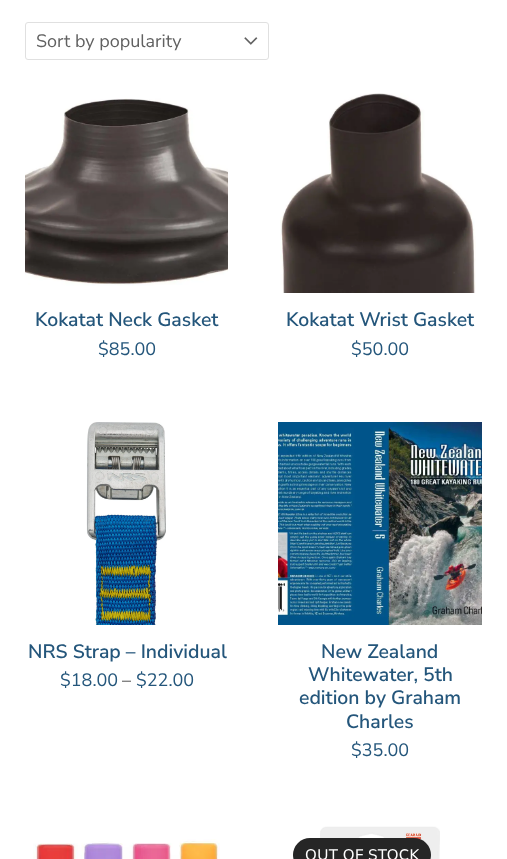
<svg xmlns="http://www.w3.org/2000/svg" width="507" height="859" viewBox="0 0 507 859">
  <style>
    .t1 { font: 18px Nunito Sans; fill: #616161; }
    .t2 { font: 600 19.4px Nunito Sans; fill: #24567b; }
    .t3 { font: 18px Nunito Sans; fill: #24567b; }
    .t4 { font: 18px Nunito Sans; fill: #4f4f4f; }
    .t5 { font: 500 15.25px Nunito Sans; letter-spacing: 0.4px; fill: #fff; }
  </style>
  <rect width="100%" height="100%" fill="#fff"/>
  <rect x="25.5" y="22.5" width="243" height="37" rx="2.5" fill="none" stroke="#e0e0e0"/>
  <text x="36" y="47" class="t1">Sort by popularity</text>
  <image x="244" y="37" width="14" height="8" href="images/1.png"/>
  <image x="25" y="98" width="203" height="188" href="images/2.png"/>
  <text x="35" y="326" class="t2">Kokatat Neck Gasket</text>
  <text x="98" y="355" class="t3">$85.00</text>
  <image x="280" y="93" width="196" height="200" href="images/3.png"/>
  <text x="286" y="326" class="t2">Kokatat Wrist Gasket</text>
  <text x="351" y="355" class="t3">$50.00</text>
  <image x="86" y="422" width="80" height="203" href="images/4.png"/>
  <text x="28" y="658" class="t2">NRS Strap – Individual</text>
  <text x="60" y="686" class="t3">$18.00</text>
  <text x="122" y="686" class="t4">–</text>
  <text x="136" y="686" class="t3">$22.00</text>
  <image x="278" y="422" width="204" height="203" href="images/5.png"/>
  <text x="321" y="658" class="t2">New Zealand</text>
  <text x="308" y="681" class="t2">Whitewater, 5th</text>
  <text x="299" y="704" class="t2">edition by Graham</text>
  <text x="346" y="728" class="t2">Charles</text>
  <text x="351" y="756" class="t3">$35.00</text>
  <image x="33" y="839" width="187" height="20" href="images/6.png"/>
  <image x="320" y="826" width="120" height="33" href="images/7.png"/>
  <rect x="293" y="838" width="138" height="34" rx="17" fill="#262626"/>
  <text x="305" y="860" class="t5">OUT OF STOCK</text>
</svg>
